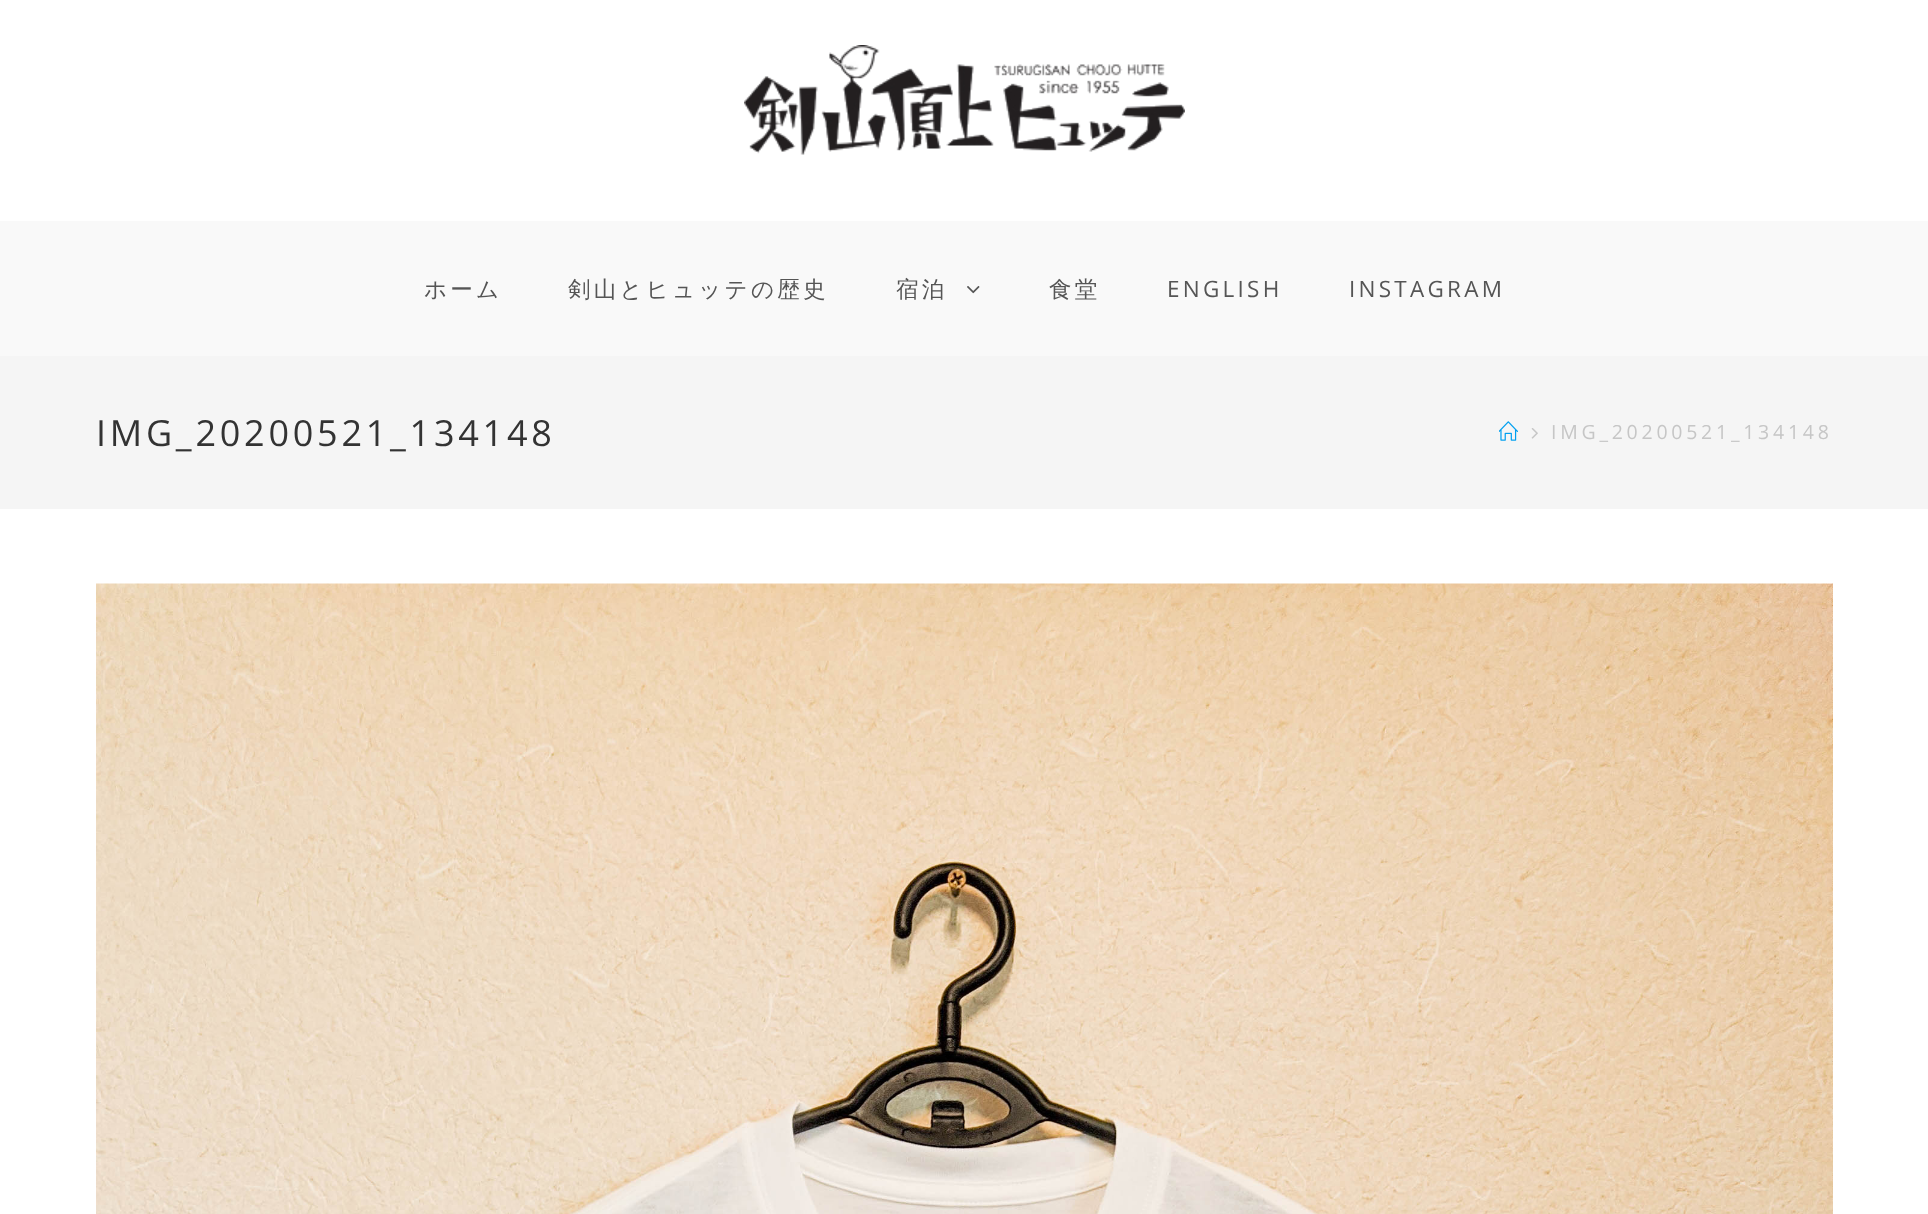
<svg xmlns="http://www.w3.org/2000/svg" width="1928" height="1214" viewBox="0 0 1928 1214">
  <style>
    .t1 { font: 500 22.5px WenQuanYi Zen Hei; letter-spacing: 3.25px; fill: #555; }
    .t2 { font: 22.5px Open Sans; letter-spacing: 3.25px; fill: #555; }
    .t3 { font: 36px Open Sans; letter-spacing: 3.75px; fill: #333; }
    .t4 { font: 19.5px Open Sans; letter-spacing: 3.75px; fill: #c6c6c6; }
  </style>
  <rect width="100%" height="100%" fill="#fff"/>
  <image x="744" y="45" width="441" height="110" href="images/1.png"/>
  <rect x="0" y="221" width="1928" height="135" fill="#f9f9f9"/>
  <text x="424" y="297" class="t1">ホーム</text>
  <text x="568" y="297" class="t1">剣山とヒュッテの歴史</text>
  <text x="896" y="297" class="t1">宿泊</text>
  <image x="967" y="286" width="13" height="8" href="images/2.png"/>
  <text x="1049" y="297" class="t1">食堂</text>
  <text x="1167" y="297" class="t2">ENGLISH</text>
  <text x="1349" y="297" class="t2">INSTAGRAM</text>
  <rect x="0" y="356" width="1928" height="153" fill="#f5f5f5"/>
  <text x="96" y="446" class="t3">IMG_20200521_134148</text>
  <image x="1499" y="421" width="19" height="20" href="images/3.png"/>
  <image x="1531" y="428" width="7" height="11" href="images/4.png"/>
  <text x="1551" y="439" class="t4">IMG_20200521_134148</text>
  <image x="96" y="583" width="1737" height="631" href="images/5.png"/>
</svg>
